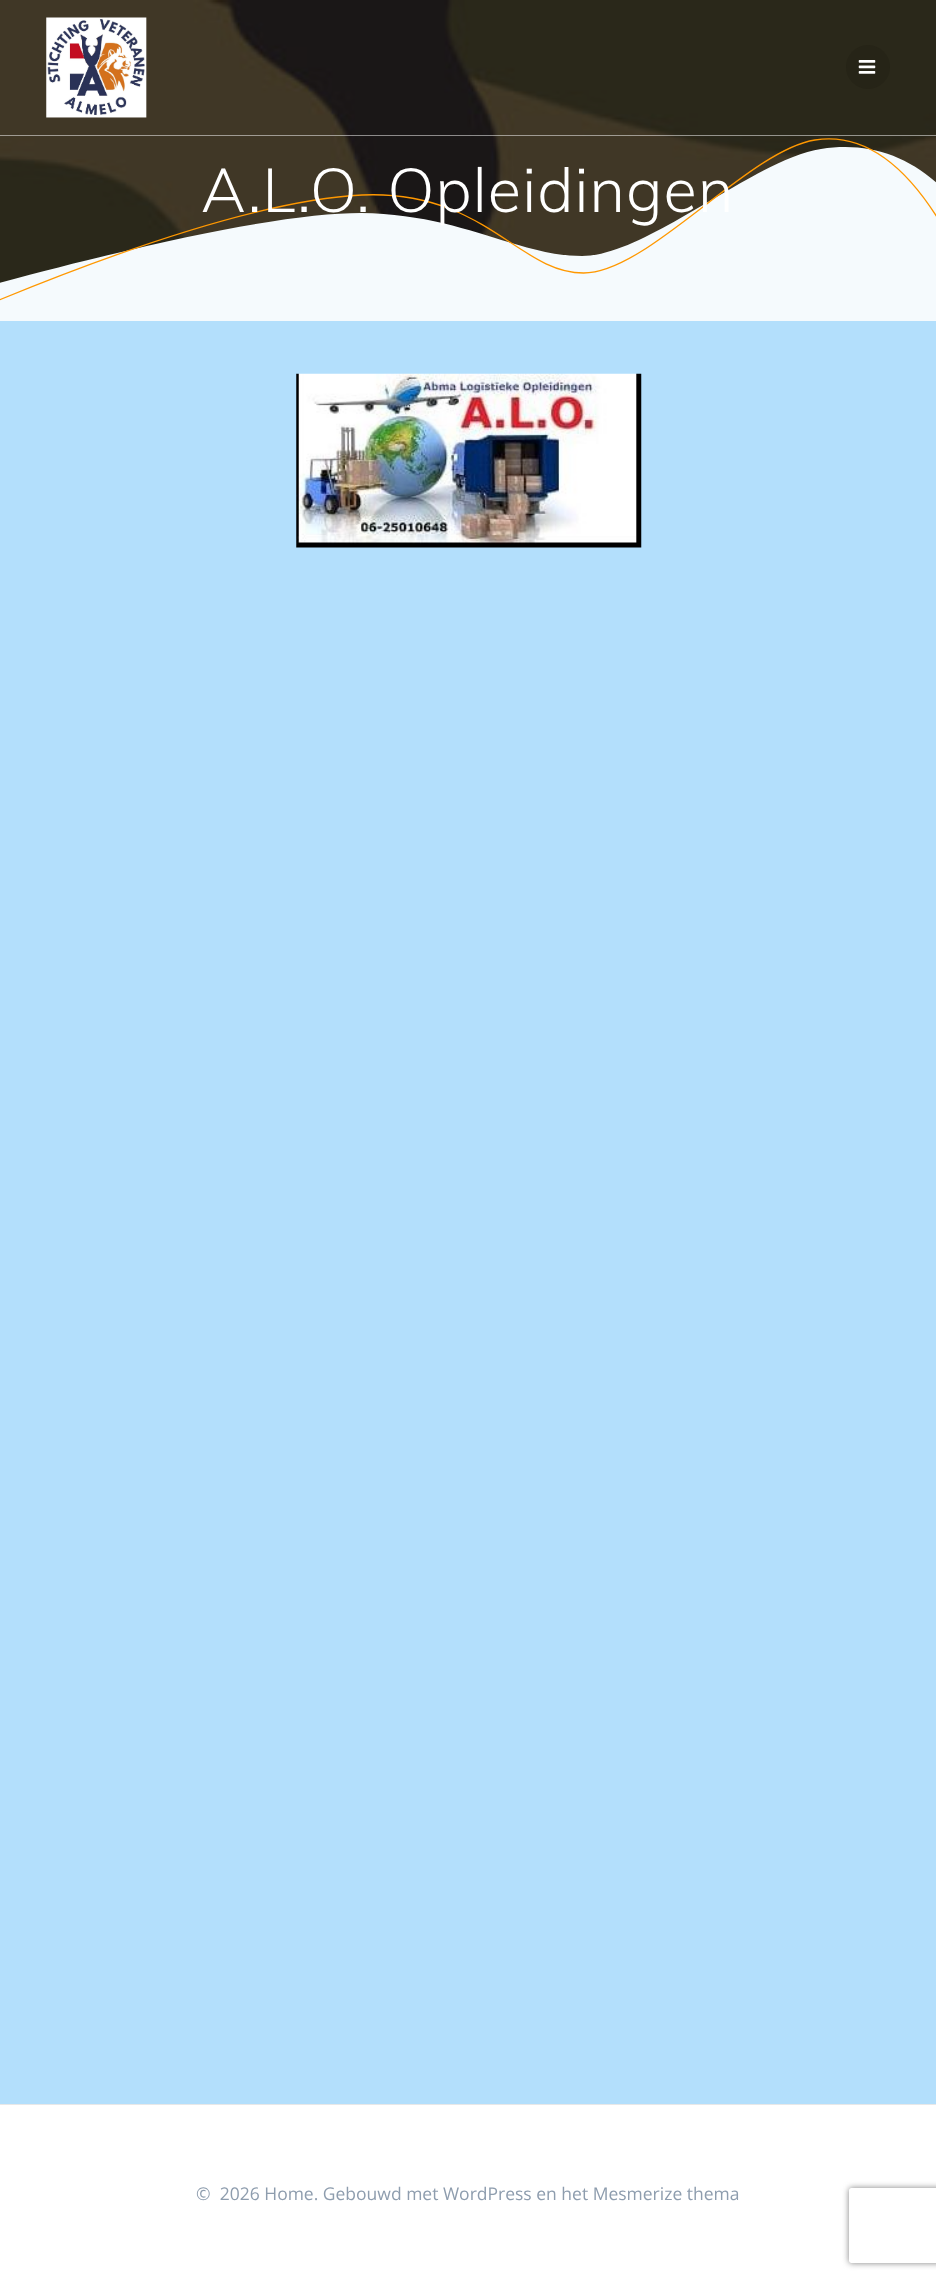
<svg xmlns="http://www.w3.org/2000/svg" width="936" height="2279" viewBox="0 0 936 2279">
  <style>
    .t1 { font: 300 61.25px Muli; letter-spacing: 1.1px; fill: #fff; }
    .t2 { font: 17.5px Open Sans; fill: #8e9dae; }
  </style>
  <defs>
    <clipPath id="clip1"><path d="M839 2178H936V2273H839ZM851.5 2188H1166.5C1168 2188 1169 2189 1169 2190.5V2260.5C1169 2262 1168 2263 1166.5 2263H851.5C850 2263 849 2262 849 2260.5V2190.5C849 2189 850 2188 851.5 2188Z" clip-rule="evenodd"/></clipPath>
  </defs>
  <rect width="100%" height="100%" fill="#fff"/>
  <image x="0" y="0" width="936" height="283" href="images/3.png"/>
  <rect x="0" y="135" width="936" height="1" fill="#ffffff80"/>
  <image x="46" y="17" width="101" height="101" href="images/1.png"/>
  <circle cx="868" cy="67" r="22" fill="#262417"/>
  <image x="858" y="60" width="18" height="14" href="images/2.png"/>
  <path d="M-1 283C174 236 294 213 361 213C461 214 518 256 582 256C647 256 754 159 821 149C866 142 905 154 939 185V324L-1 326Z" fill="#f5fafd"/>
  <path d="M-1 300C160 234 281 199 362 195C484 189.5 518.5 273 583.5 273C648 273 748 150.5 815 140C859.5 133 901 159.5 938.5 219.5" fill="none" stroke="#ff9800" stroke-width="1.3"/>
  <text x="201" y="212" class="t1">A.L.O. Opleidingen</text>
  <rect x="0" y="321" width="936" height="1783" fill="#b3dffc"/>
  <image x="296" y="373" width="346" height="175" href="images/4.png"/>
  <rect x="0" y="2104" width="936" height="1" fill="#e8e8e8"/>
  <text x="196" y="2200" class="t2" xml:space="preserve">©  2026 Home. Gebouwd met WordPress en het Mesmerize thema</text>
  <g clip-path="url(#clip1)">
    <rect x="849" y="2188" width="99" height="75" rx="2.5" fill="#808080" filter="blur(3px)"/>
  </g>
</svg>
